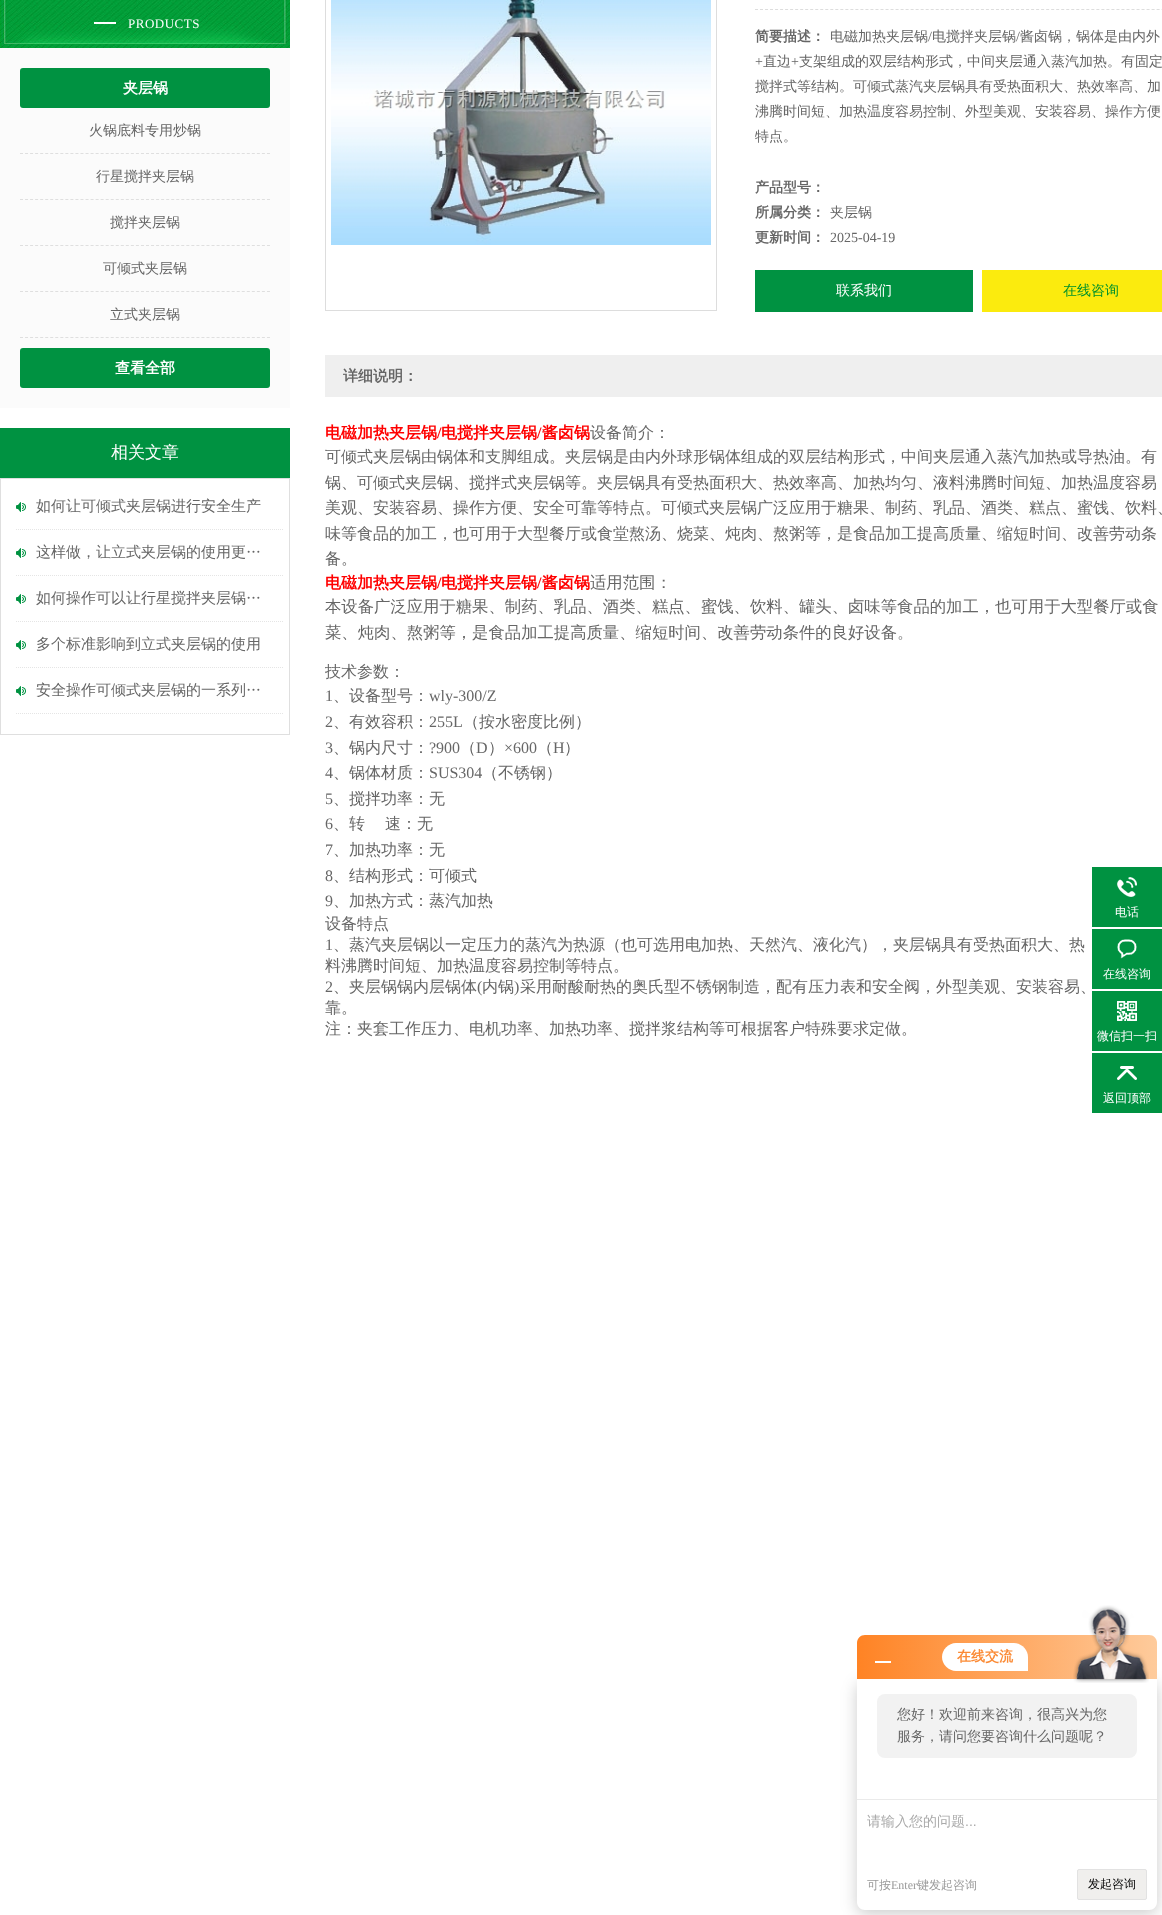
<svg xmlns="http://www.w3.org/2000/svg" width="1162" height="1915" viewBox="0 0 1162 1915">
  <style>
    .t1 { font: 13px Liberation Serif; letter-spacing: 0.5px; fill: #fff; }
    .t2 { font: bold 15px WenQuanYi Zen Hei; fill: #fff; }
    .t3 { font: 500 14px WenQuanYi Zen Hei; fill: #666; }
    .t4 { font: 500 17px WenQuanYi Zen Hei; fill: #fff; }
    .t5 { font: 500 15px WenQuanYi Zen Hei; fill: #666; }
    .t6 { font: bold 14px WenQuanYi Zen Hei; fill: #666; }
    .t7 { font: 14px Liberation Serif; fill: #666; }
    .t8 { font: 500 14px WenQuanYi Zen Hei; fill: #fff; }
    .t9 { font: 500 14px WenQuanYi Zen Hei; fill: #00922c; }
    .t10 { font: bold 15px WenQuanYi Zen Hei; fill: #666; }
    .t11 { font: bold 16px WenQuanYi Zen Hei; fill: #f00; }
    .t12 { font: bold 16px Liberation Serif; fill: #f00; }
    .t13 { font: 500 16px WenQuanYi Zen Hei; fill: #666; }
    .t14 { font: 500 16.35px WenQuanYi Zen Hei; fill: #666; }
    .t15 { font: 16px Liberation Serif; fill: #666; }
    .t16 { font: 500 12px WenQuanYi Zen Hei; fill: #fff; }
    .t17 { font: bold 14px WenQuanYi Zen Hei; fill: #fb8b36; }
    .t18 { font: 500 14px WenQuanYi Zen Hei; fill: #aaa; }
    .t19 { font: 14px Liberation Sans; fill: #aaa; }
    .t20 { font: 500 12px WenQuanYi Zen Hei; fill: #999; }
    .t21 { font: 12px Liberation Serif; fill: #999; }
    .t22 { font: 500 12px WenQuanYi Zen Hei; fill: #000; }
  </style>
  <defs>
    <linearGradient id="g1" gradientUnits="userSpaceOnUse" x1="857" y1="1657" x2="1157" y2="1657"><stop offset="0" stop-color="#ff8324"/><stop offset="1" stop-color="#fecb9c"/></linearGradient>
  </defs>
  <rect width="100%" height="100%" fill="#fff"/>
  <image x="0" y="0" width="290" height="48" href="images/1.png"/>
  <rect x="94" y="22" width="22" height="2" fill="#fff"/>
  <text x="128" y="28" class="t1">PRODUCTS</text>
  <rect x="0" y="48" width="290" height="360" fill="#fbfbfb"/>
  <rect x="20" y="68" width="250" height="40" rx="3" fill="#009241"/>
  <text x="123" y="93" class="t2">夹层锅</text>
  <path d="M20 153.5H270" fill="none" stroke="#dfdfdf" stroke-dasharray="3 2.04"/>
  <text x="89" y="135" class="t3">火锅底料专用炒锅</text>
  <path d="M20 199.5H270" fill="none" stroke="#dfdfdf" stroke-dasharray="3 2.04"/>
  <text x="96" y="181" class="t3">行星搅拌夹层锅</text>
  <path d="M20 245.5H270" fill="none" stroke="#dfdfdf" stroke-dasharray="3 2.04"/>
  <text x="110" y="227" class="t3">搅拌夹层锅</text>
  <path d="M20 291.5H270" fill="none" stroke="#dfdfdf" stroke-dasharray="3 2.04"/>
  <text x="103" y="273" class="t3">可倾式夹层锅</text>
  <path d="M20 337.5H270" fill="none" stroke="#dfdfdf" stroke-dasharray="3 2.04"/>
  <text x="110" y="319" class="t3">立式夹层锅</text>
  <rect x="20" y="348" width="250" height="40" rx="3" fill="#009241"/>
  <text x="115" y="373" class="t2">查看全部</text>
  <rect x="0" y="428" width="290" height="50" fill="#009241"/>
  <text x="111" y="458" class="t4">相关文章</text>
  <rect x="0.5" y="478.5" width="289" height="256" fill="none" stroke="#dfdfdf"/>
  <image x="16" y="502" width="10" height="10" href="images/2.png"/>
  <path d="M16 529.5H284" fill="none" stroke="#e5e5e5" stroke-dasharray="1 1"/>
  <text x="36" y="511" class="t5">如何让可倾式夹层锅进行安全生产</text>
  <image x="16" y="548" width="10" height="10" href="images/2.png"/>
  <path d="M16 575.5H284" fill="none" stroke="#e5e5e5" stroke-dasharray="1 1"/>
  <text x="36" y="557" class="t5">这样做，让立式夹层锅的使用更…</text>
  <image x="16" y="594" width="10" height="10" href="images/2.png"/>
  <path d="M16 621.5H284" fill="none" stroke="#e5e5e5" stroke-dasharray="1 1"/>
  <text x="36" y="603" class="t5">如何操作可以让行星搅拌夹层锅…</text>
  <image x="16" y="640" width="10" height="10" href="images/2.png"/>
  <path d="M16 667.5H284" fill="none" stroke="#e5e5e5" stroke-dasharray="1 1"/>
  <text x="36" y="649" class="t5">多个标准影响到立式夹层锅的使用</text>
  <image x="16" y="686" width="10" height="10" href="images/2.png"/>
  <path d="M16 713.5H284" fill="none" stroke="#e5e5e5" stroke-dasharray="1 1"/>
  <text x="36" y="695" class="t5">安全操作可倾式夹层锅的一系列…</text>
  <rect x="325.5" y="-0.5" width="391" height="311" fill="none" stroke="#ddd"/>
  <image x="331" y="0" width="380" height="245" href="images/3.png"/>
  <path d="M755 9.5H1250" fill="none" stroke="#ddd" stroke-dasharray="3 2.02"/>
  <text x="755" y="41" class="t6">简要描述：</text>
  <text x="830" y="41" class="t3">电磁加热夹层锅</text>
  <text x="928" y="41" class="t7">/</text>
  <text x="932" y="41" class="t3">电搅拌夹层锅</text>
  <text x="1016" y="41" class="t7">/</text>
  <text x="1020" y="41" class="t3">酱卤锅，锅体是由内外</text>
  <text x="755" y="66" class="t7">+</text>
  <text x="763" y="66" class="t3">直边</text>
  <text x="791" y="66" class="t7">+</text>
  <text x="799" y="66" class="t3">支架组成的双层结构形式，中间夹层通入蒸汽加热。有固定</text>
  <text x="755" y="91" class="t3">搅拌式等结构。可倾式蒸汽夹层锅具有受热面积大、热效率高、加</text>
  <text x="755" y="116" class="t3">沸腾时间短、加热温度容易控制、外型美观、安装容易、操作方便</text>
  <text x="755" y="141" class="t3">特点。</text>
  <text x="755" y="192" class="t6">产品型号：</text>
  <text x="755" y="217" class="t6">所属分类：</text>
  <text x="830" y="217" class="t3">夹层锅</text>
  <text x="755" y="242" class="t6">更新时间：</text>
  <text x="830" y="242" class="t7">2025-04-19</text>
  <rect x="755" y="270" width="218" height="42" fill="#009241"/>
  <text x="836" y="295" class="t8">联系我们</text>
  <rect x="982" y="270" width="180" height="42" fill="#fbeb0e"/>
  <text x="1063" y="295" class="t9">在线咨询</text>
  <rect x="325" y="355" width="837" height="42" fill="#efefef"/>
  <text x="343" y="381" class="t10">详细说明：</text>
  <text x="325" y="438" class="t11">电磁加热夹层锅</text>
  <text x="437" y="438" class="t12">/</text>
  <text x="441" y="438" class="t11">电搅拌夹层锅</text>
  <text x="537" y="438" class="t12">/</text>
  <text x="542" y="438" class="t11">酱卤锅</text>
  <text x="590" y="438" class="t13">设备简介：</text>
  <text x="325" y="462" class="t13">可倾式夹层锅由锅体和支脚组成。夹层锅是由内外球形锅体组成的双层结构形式，中间夹层通入蒸汽加热或导热油。有</text>
  <text x="325" y="488" class="t13">锅、可倾式夹层锅、搅拌式夹层锅等。夹层锅具有受热面积大、热效率高、加热均匀、液料沸腾时间短、加热温度容易</text>
  <text x="325" y="513" class="t13">美观、安装容易、操作方便、安全可靠等特点。可倾式夹层锅广泛应用于糖果、制药、乳品、酒类、糕点、蜜饯、饮料、</text>
  <text x="325" y="539" class="t13">味等食品的加工，也可用于大型餐厅或食堂熬汤、烧菜、炖肉、熬粥等，是食品加工提高质量、缩短时间、改善劳动条</text>
  <text x="325" y="564" class="t13">备。</text>
  <text x="325" y="588" class="t11">电磁加热夹层锅</text>
  <text x="437" y="588" class="t12">/</text>
  <text x="441" y="588" class="t11">电搅拌夹层锅</text>
  <text x="537" y="588" class="t12">/</text>
  <text x="542" y="588" class="t11">酱卤锅</text>
  <text x="590" y="588" class="t14">适用范围：</text>
  <text x="325" y="612" class="t14">本设备广泛应用于糖果、制药、乳品、酒类、糕点、蜜饯、饮料、罐头、卤味等食品的加工，也可用于大型餐厅或食</text>
  <text x="325" y="638" class="t14">菜、炖肉、熬粥等，是食品加工提高质量、缩短时间、改善劳动条件的良好设备。</text>
  <text x="325" y="677" class="t13">技术参数：</text>
  <text x="325" y="701" class="t15">1</text>
  <text x="333" y="701" class="t13">、设备型号：</text>
  <text x="429" y="701" class="t15">wly-300/Z</text>
  <text x="325" y="727" class="t15">2</text>
  <text x="333" y="727" class="t13">、有效容积：</text>
  <text x="429" y="727" class="t15">255L</text>
  <text x="463" y="727" class="t13">（按水密度比例）</text>
  <text x="325" y="753" class="t15">3</text>
  <text x="333" y="753" class="t13">、锅内尺寸：</text>
  <text x="429" y="753" class="t15">?900</text>
  <text x="460" y="753" class="t13">（</text>
  <text x="476" y="753" class="t15">D</text>
  <text x="488" y="753" class="t13">）</text>
  <text x="504" y="753" class="t15">×600</text>
  <text x="537" y="753" class="t13">（</text>
  <text x="553" y="753" class="t15">H</text>
  <text x="564" y="753" class="t13">）</text>
  <text x="325" y="778" class="t15">4</text>
  <text x="333" y="778" class="t13">、锅体材质：</text>
  <text x="429" y="778" class="t15">SUS304</text>
  <text x="482" y="778" class="t13">（不锈钢）</text>
  <text x="325" y="804" class="t15">5</text>
  <text x="333" y="804" class="t13">、搅拌功率：无</text>
  <text x="325" y="829" class="t15">6</text>
  <text x="333" y="829" class="t13">、转</text>
  <text x="385" y="829" class="t13">速：无</text>
  <text x="325" y="855" class="t15">7</text>
  <text x="333" y="855" class="t13">、加热功率：无</text>
  <text x="325" y="881" class="t15">8</text>
  <text x="333" y="881" class="t13">、结构形式：可倾式</text>
  <text x="325" y="906" class="t15">9</text>
  <text x="333" y="906" class="t13">、加热方式：蒸汽加热</text>
  <text x="325" y="929" class="t13">设备特点</text>
  <text x="325" y="950" class="t15">1</text>
  <text x="333" y="950" class="t13">、蒸汽夹层锅以一定压力的蒸汽为热源（也可选用电加热、天然汽、液化汽），夹层锅具有受热面积大、热</text>
  <text x="325" y="971" class="t13">料沸腾时间短、加热温度容易控制等特点。</text>
  <text x="325" y="992" class="t15">2</text>
  <text x="333" y="992" class="t13">、夹层锅锅内层锅体</text>
  <text x="477" y="992" class="t15">(</text>
  <text x="482" y="992" class="t13">内锅</text>
  <text x="514" y="992" class="t15">)</text>
  <text x="520" y="992" class="t13">采用耐酸耐热的奥氏型不锈钢制造，配有压力表和安全阀，外型美观、安装容易、</text>
  <text x="325" y="1013" class="t13">靠。</text>
  <text x="325" y="1034" class="t13">注：夹套工作压力、电机功率、加热功率、搅拌浆结构等可根据客户特殊要求定做。</text>
  <rect x="1092" y="867" width="70" height="60" fill="#009241"/>
  <image x="1117" y="877" width="20" height="20" href="images/4.png"/>
  <text x="1115" y="916" class="t16">电话</text>
  <rect x="1092" y="929" width="70" height="60" fill="#009241"/>
  <image x="1117" y="939" width="20" height="20" href="images/5.png"/>
  <text x="1103" y="978" class="t16">在线咨询</text>
  <rect x="1092" y="991" width="70" height="60" fill="#009241"/>
  <image x="1117" y="1001" width="20" height="20" href="images/6.png"/>
  <text x="1097" y="1040" class="t16">微信扫一扫</text>
  <rect x="1092" y="1053" width="70" height="60" fill="#009241"/>
  <image x="1117" y="1066" width="20" height="14" href="images/7.png"/>
  <text x="1103" y="1102" class="t16">返回顶部</text>
  <rect x="857" y="1683" width="300" height="231" rx="8" fill="#00000033" filter="blur(8px)"/>
  <path d="M865 1635H1149C1153.5 1635 1157 1638.5 1157 1643V1679H857V1643C857 1638.5 860.5 1635 865 1635Z" fill="url(#g1)"/>
  <rect x="875" y="1661" width="16" height="2" fill="#fff"/>
  <path d="M956 1643H1014C1021.5 1643 1028 1649.5 1028 1657V1671H956C948.5 1671 942 1664.5 942 1657C942 1649.5 948.5 1643 956 1643Z" fill="#fff"/>
  <text x="957" y="1661" class="t17">在线交流</text>
  <path d="M857 1679H1157V1902C1157 1906.5 1153.5 1910 1149 1910H865C860.5 1910 857 1906.5 857 1902Z" fill="#fff"/>
  <image x="1073" y="1605" width="76" height="78" href="images/8.png"/>
  <rect x="877" y="1694" width="260" height="64" rx="8" fill="#f2f2f2"/>
  <text x="897" y="1719" class="t3">您好！欢迎前来咨询，很高兴为您</text>
  <text x="897" y="1741" class="t3">服务，请问您要咨询什么问题呢？</text>
  <rect x="857" y="1799" width="300" height="1" fill="#eaeaea"/>
  <text x="867" y="1826" class="t18">请输入您的问题</text>
  <text x="965" y="1826" class="t19">...</text>
  <text x="867" y="1889" class="t20">可按</text>
  <text x="891" y="1889" class="t21">Enter</text>
  <text x="917" y="1889" class="t20">键发起咨询</text>
  <rect x="1077.5" y="1869.5" width="69" height="30" rx="1.5" fill="#f0efed" stroke="#e2e2e2"/>
  <text x="1088" y="1888" class="t22">发起咨询</text>
</svg>
